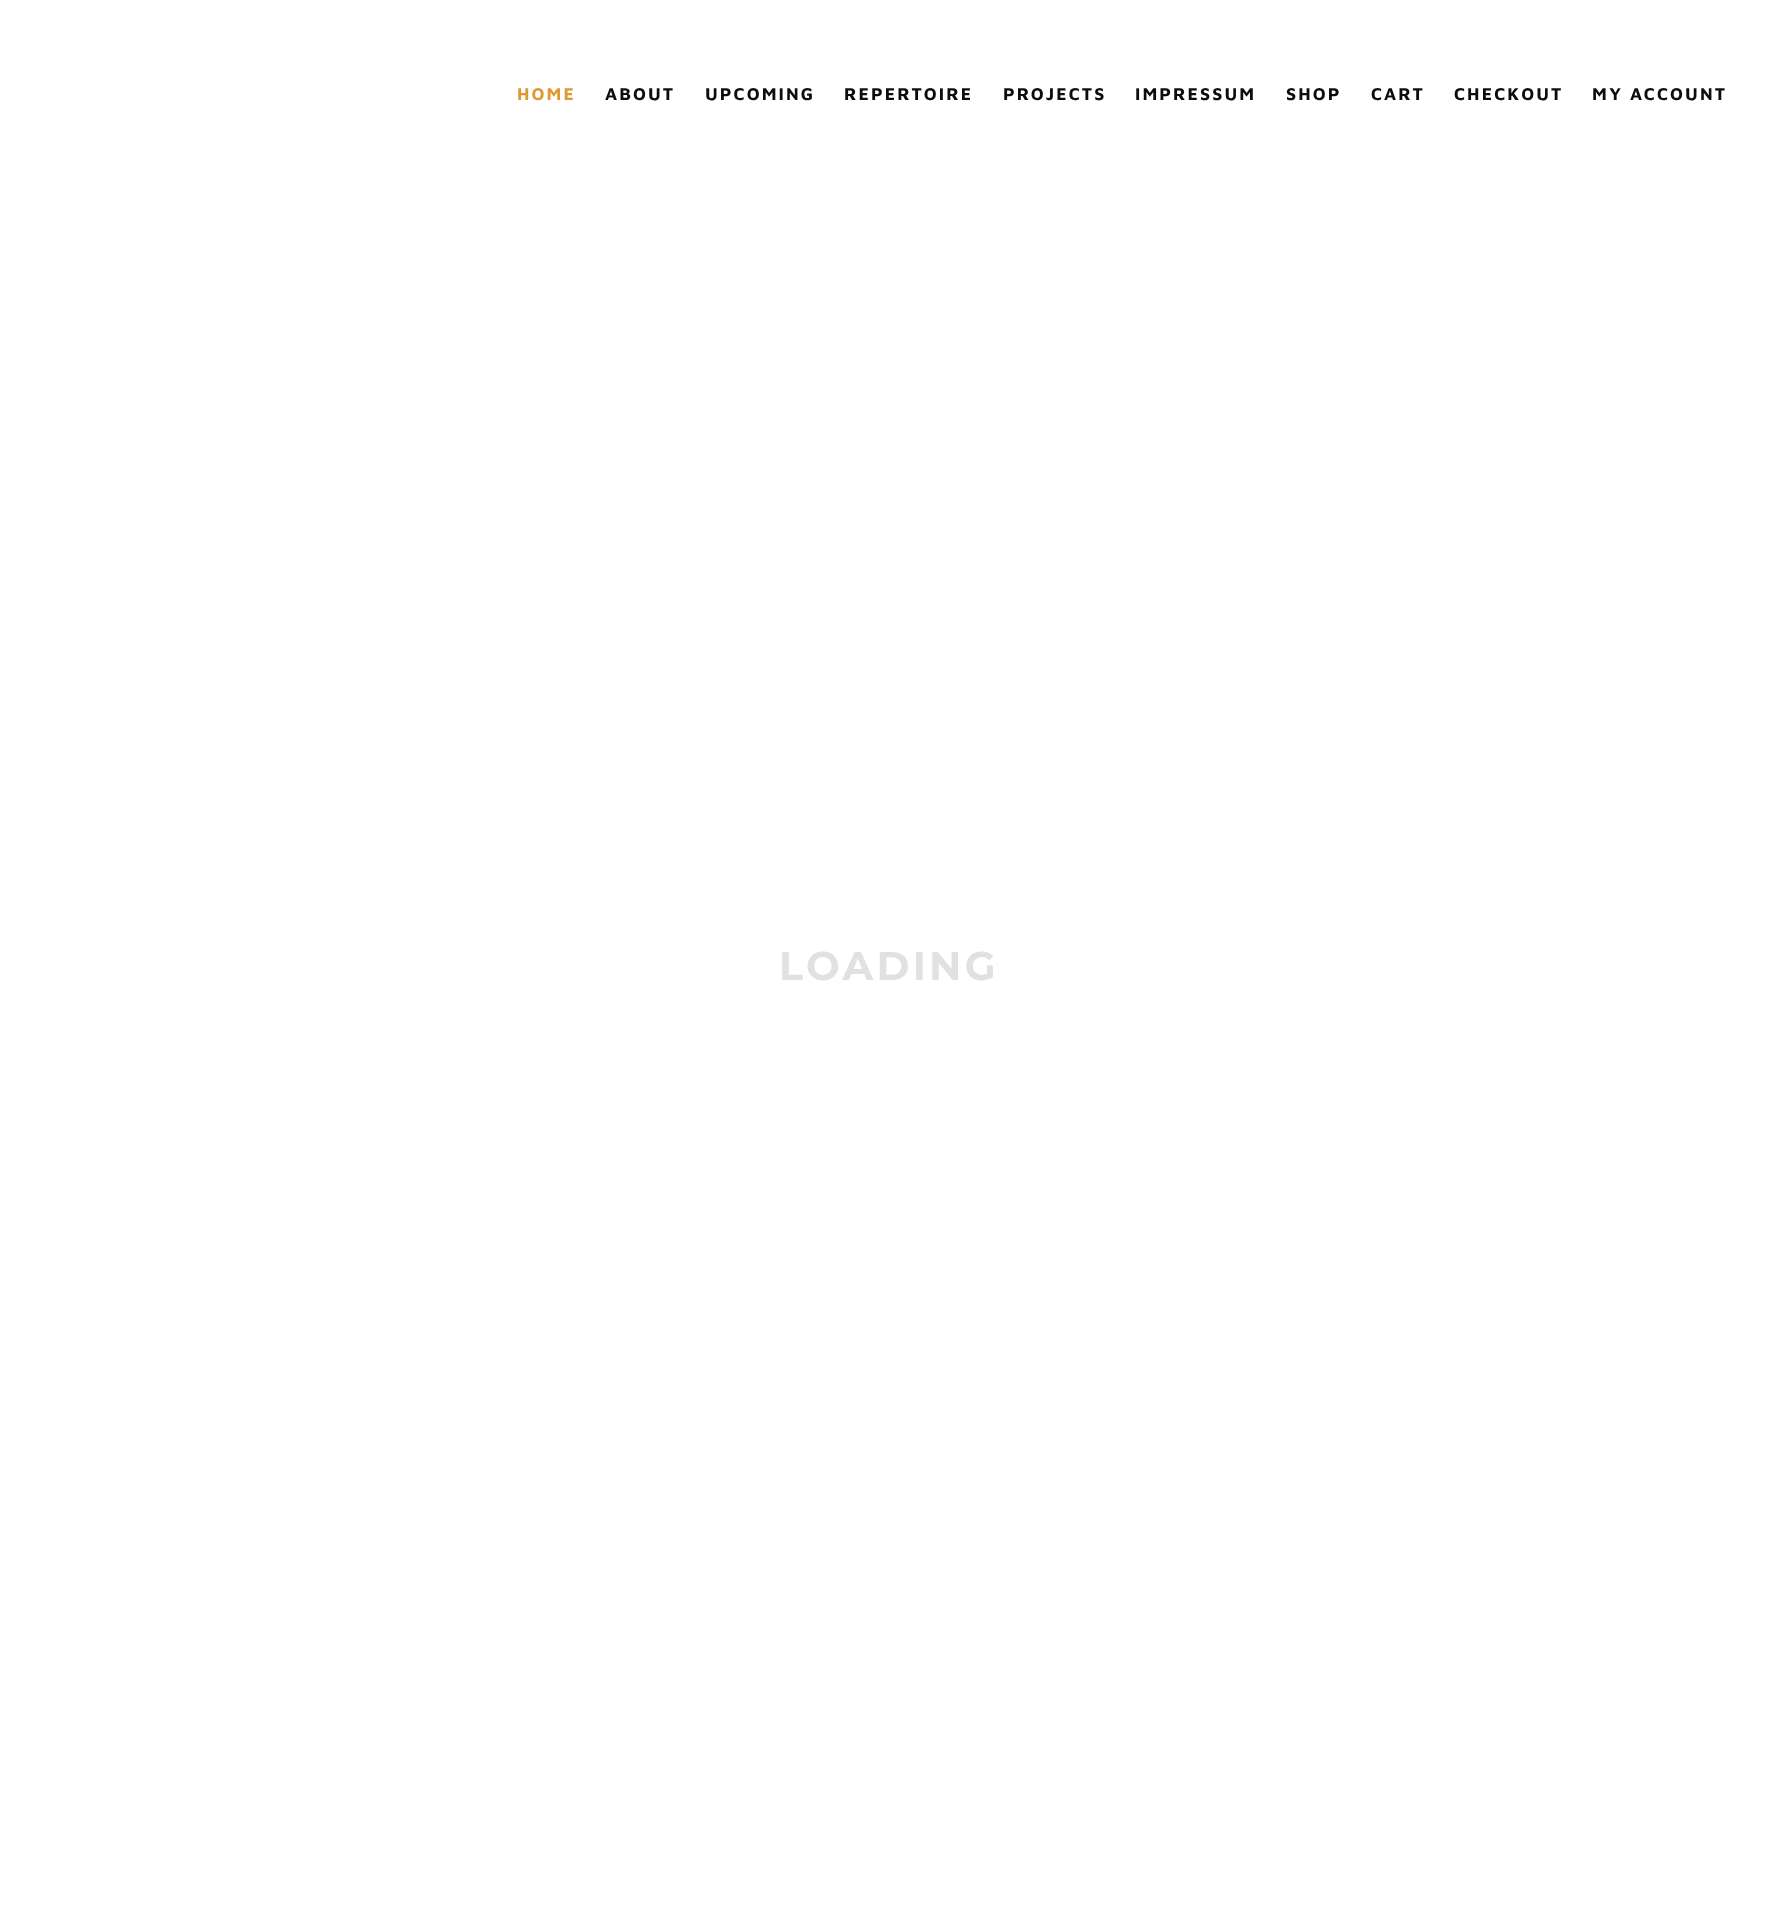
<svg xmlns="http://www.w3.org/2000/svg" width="1777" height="1932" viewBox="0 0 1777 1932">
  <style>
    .t1 { font: bold 17.5px Maven Pro; letter-spacing: 2.1px; fill: #d93; }
    .t2 { font: bold 17.5px Maven Pro; letter-spacing: 2.1px; fill: #0d0d0d; }
    .t3 { font: bold 40px Montserrat; letter-spacing: 3.25px; fill: #e1e1e1; }
  </style>
  <rect width="100%" height="100%" fill="#fff"/>
  <text x="517" y="100" class="t1">HOME</text>
  <text x="605" y="100" class="t2">ABOUT</text>
  <text x="705" y="100" class="t2">UPCOMING</text>
  <text x="844" y="100" class="t2">REPERTOIRE</text>
  <text x="1003" y="100" class="t2">PROJECTS</text>
  <text x="1135" y="100" class="t2">IMPRESSUM</text>
  <text x="1286" y="100" class="t2">SHOP</text>
  <text x="1371" y="100" class="t2">CART</text>
  <text x="1454" y="100" class="t2">CHECKOUT</text>
  <text x="1592" y="100" class="t2">MY ACCOUNT</text>
  <text x="779" y="980" class="t3">LOADING</text>
</svg>
